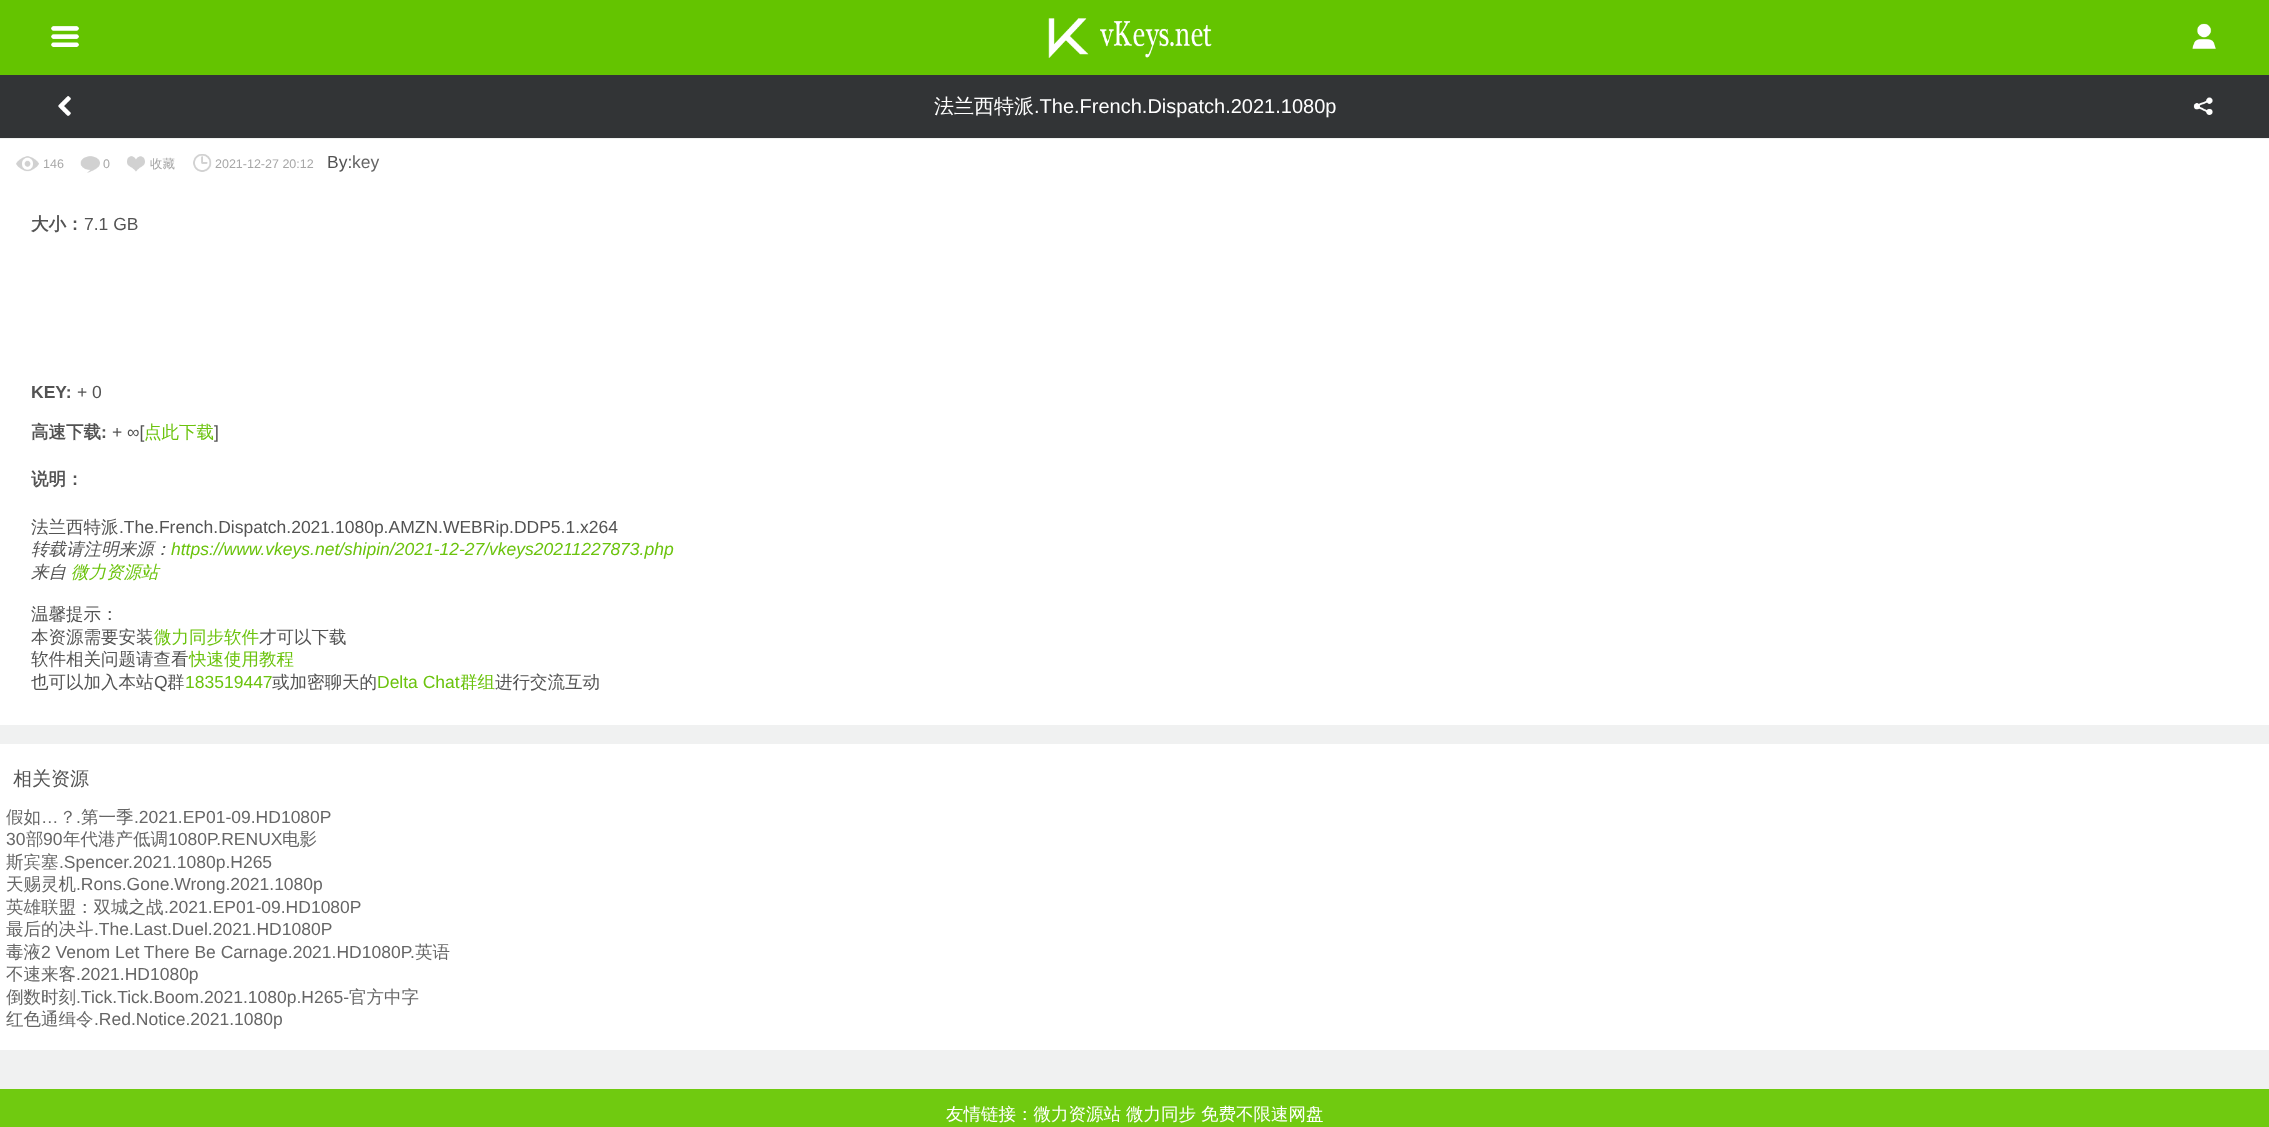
<svg xmlns="http://www.w3.org/2000/svg" width="2269" height="1127" viewBox="0 0 2269 1127">
  <style>
    .t1 { font: 500 20px WenQuanYi Zen Hei; fill: #fff; }
    .t2 { font: 20px Liberation Sans; fill: #fff; }
    .t3 { font: 12.5px Liberation Sans; fill: #a7a7a7; }
    .t4 { font: 500 12.5px WenQuanYi Zen Hei; fill: #a7a7a7; }
    .t5 { font: 17.5px Liberation Sans; fill: #535353; }
    .t6 { font: 17.5px Liberation Sans; fill: #666; }
    .t7 { font: bold 17.5px WenQuanYi Zen Hei; fill: #535353; }
    .t8 { font: bold 17.5px Liberation Sans; fill: #535353; }
    .t9 { font: 500 17.5px WenQuanYi Zen Hei; fill: #6bc30d; }
    .t10 { font: 500 17.5px WenQuanYi Zen Hei; fill: #535353; }
    .t11 { font: italic 500 17.5px WenQuanYi Zen Hei; fill: #535353; }
    .t12 { font: italic 17.5px Liberation Sans; fill: #6bc30d; }
    .t13 { font: italic 500 17.5px WenQuanYi Zen Hei; fill: #6bc30d; }
    .t14 { font: 17.5px Liberation Sans; fill: #6bc30d; }
    .t15 { font: 500 19px WenQuanYi Zen Hei; fill: #535353; }
    .t16 { font: 500 17.5px WenQuanYi Zen Hei; fill: #666; }
    .t17 { font: 500 17.5px WenQuanYi Zen Hei; fill: #fff; }
  </style>
  <rect width="100%" height="100%" fill="#f0f1f1"/>
  <rect x="0" y="0" width="2269" height="75" fill="#64c400"/>
  <image x="51" y="26" width="28" height="21" href="images/1.png"/>
  <image x="1048" y="18" width="164" height="40" href="images/2.png"/>
  <image x="2192" y="23" width="24" height="26" href="images/3.png"/>
  <rect x="0" y="75" width="2269" height="63" fill="#323436"/>
  <image x="58" y="96" width="13" height="20" href="images/4.png"/>
  <text x="934" y="113" class="t1">法兰西特派</text>
  <text x="1034" y="113" class="t2">.The.French.Dispatch.2021.1080p</text>
  <image x="2193" y="97" width="20" height="18" href="images/5.png"/>
  <rect x="0" y="139" width="2269" height="586" fill="#fff"/>
  <image x="16" y="156" width="23" height="16" href="images/6.png"/>
  <text x="43" y="168" class="t3">146</text>
  <image x="80" y="156" width="20" height="17" href="images/7.png"/>
  <text x="103" y="168" class="t3">0</text>
  <image x="127" y="156" width="18" height="16" href="images/8.png"/>
  <text x="150" y="168" class="t4">收藏</text>
  <image x="193" y="154" width="19" height="18" href="images/9.png"/>
  <text x="215" y="168" class="t3">2021-12-27 20:12</text>
  <text x="327" y="168" class="t5">By:</text>
  <text x="352" y="168" class="t6">key</text>
  <text x="31" y="230" class="t7">大小：</text>
  <text x="84" y="230" class="t5">7.1 GB</text>
  <text x="31" y="398" class="t8">KEY:</text>
  <text x="77" y="398" class="t5">+ 0</text>
  <text x="31" y="438" class="t7">高速下载</text>
  <text x="101" y="438" class="t8">:</text>
  <text x="112" y="438" class="t5">+ ∞[</text>
  <text x="144" y="438" class="t9">点此下载</text>
  <text x="214" y="438" class="t5">]</text>
  <text x="31" y="485" class="t7">说明：</text>
  <text x="31" y="533" class="t10">法兰西特派</text>
  <text x="119" y="533" class="t5">.The.French.Dispatch.2021.1080p.AMZN.WEBRip.DDP5.1.x264</text>
  <text x="31" y="555" class="t11">转载请注明来源：</text>
  <text x="171" y="555" class="t12">https://www.vkeys.net/shipin/2021-12-27/vkeys20211227873.php</text>
  <text x="31" y="578" class="t11">来自</text>
  <text x="71" y="578" class="t13">微力资源站</text>
  <text x="31" y="620" class="t10">温馨提示：</text>
  <text x="31" y="643" class="t10">本资源需要安装</text>
  <text x="154" y="643" class="t9">微力同步软件</text>
  <text x="259" y="643" class="t10">才可以下载</text>
  <text x="31" y="665" class="t10">软件相关问题请查看</text>
  <text x="189" y="665" class="t9">快速使用教程</text>
  <text x="31" y="688" class="t10">也可以加入本站</text>
  <text x="154" y="688" class="t5">Q</text>
  <text x="167" y="688" class="t10">群</text>
  <text x="185" y="688" class="t14">183519447</text>
  <text x="272" y="688" class="t10">或加密聊天的</text>
  <text x="377" y="688" class="t14">Delta Chat</text>
  <text x="460" y="688" class="t9">群组</text>
  <text x="495" y="688" class="t10">进行交流互动</text>
  <rect x="0" y="744" width="2269" height="306" fill="#fff"/>
  <text x="13" y="785" class="t15">相关资源</text>
  <text x="6" y="823" class="t16">假如</text>
  <text x="41" y="823" class="t6">…</text>
  <text x="59" y="823" class="t16">？</text>
  <text x="76" y="823" class="t6">.</text>
  <text x="81" y="823" class="t16">第一季</text>
  <text x="134" y="823" class="t6">.2021.EP01-09.HD1080P</text>
  <text x="6" y="845" class="t6">30</text>
  <text x="26" y="845" class="t16">部</text>
  <text x="43" y="845" class="t6">90</text>
  <text x="63" y="845" class="t16">年代港产低调</text>
  <text x="168" y="845" class="t6">1080P.RENUX</text>
  <text x="282" y="845" class="t16">电影</text>
  <text x="6" y="868" class="t16">斯宾塞</text>
  <text x="59" y="868" class="t6">.Spencer.2021.1080p.H265</text>
  <text x="6" y="890" class="t16">天赐灵机</text>
  <text x="76" y="890" class="t6">.Rons.Gone.Wrong.2021.1080p</text>
  <text x="6" y="913" class="t16">英雄联盟：双城之战</text>
  <text x="164" y="913" class="t6">.2021.EP01-09.HD1080P</text>
  <text x="6" y="935" class="t16">最后的决斗</text>
  <text x="94" y="935" class="t6">.The.Last.Duel.2021.HD1080P</text>
  <text x="6" y="958" class="t16">毒液</text>
  <text x="41" y="958" class="t6">2 Venom Let There Be Carnage.2021.HD1080P.</text>
  <text x="415" y="958" class="t16">英语</text>
  <text x="6" y="980" class="t16">不速来客</text>
  <text x="76" y="980" class="t6">.2021.HD1080p</text>
  <text x="6" y="1003" class="t16">倒数时刻</text>
  <text x="76" y="1003" class="t6">.Tick.Tick.Boom.2021.1080p.H265-</text>
  <text x="349" y="1003" class="t16">官方中字</text>
  <text x="6" y="1025" class="t16">红色通缉令</text>
  <text x="94" y="1025" class="t6">.Red.Notice.2021.1080p</text>
  <rect x="0" y="1089" width="2269" height="38" fill="#70ca10"/>
  <text x="946" y="1120" class="t17">友情链接：微力资源站</text>
  <text x="1126" y="1120" class="t17">微力同步</text>
  <text x="1201" y="1120" class="t17">免费不限速网盘</text>
</svg>
